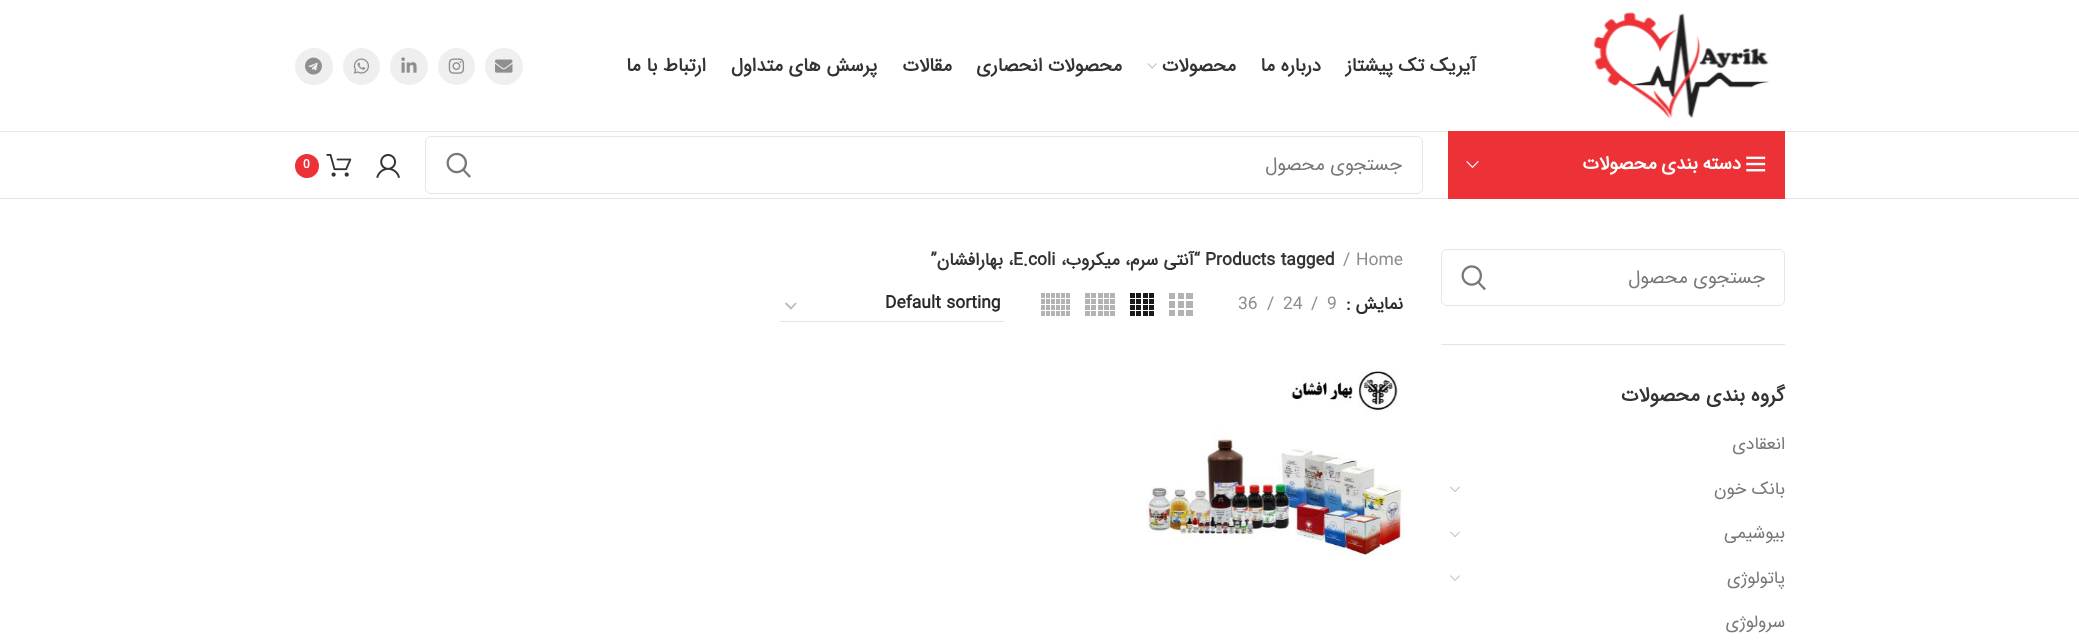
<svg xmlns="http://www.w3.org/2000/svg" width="2079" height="644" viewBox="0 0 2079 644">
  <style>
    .t1 { font: bold 18.75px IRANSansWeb; direction: rtl; fill: #333; }
    .t2 { font: bold 18.75px IRANSansWeb; letter-spacing: 0.5px; direction: rtl; fill: #fff; }
    .t3 { font: 18.75px IRANSansWeb; direction: rtl; fill: #777; }
    .t4 { font: bold 12px IRANSansWeb; fill: #fff; }
    .t5 { font: bold 20px IRANSansWeb; direction: rtl; fill: #333; }
    .t6 { font: 17.5px IRANSansWeb; direction: rtl; fill: #777; }
    .t7 { font: 17.5px IRANSansWeb; fill: #8e8e8e; }
    .t8 { font: bold 17.5px IRANSansWeb; fill: #333; }
    .t9 { font: bold 17.5px IRANSansWeb; direction: rtl; fill: #333; }
    .t10 { font: bold 17.5px IRANSansWeb; direction: rtl; fill: #2d2a2a; }
    .t11 { font: bold 17.5px IRANSansWeb; fill: #2d2a2a; }
  </style>
  <rect width="100%" height="100%" fill="#fff"/>
  <rect x="0" y="131" width="2079" height="1" fill="#e8e8e8"/>
  <image x="1593" y="12" width="176" height="107" href="images/1.png"/>
  <text x="1476" y="71" class="t1">آیریک تک پیشتاز</text>
  <text x="1321" y="71" class="t1">درباره ما</text>
  <text x="1236" y="71" class="t1">محصولات</text>
  <image x="1147" y="63" width="10" height="6" href="images/2.png"/>
  <text x="1122" y="71" class="t1">محصولات انحصاری</text>
  <text x="952" y="71" class="t1">مقالات</text>
  <text x="877" y="71" class="t1">پرسش های متداول</text>
  <text x="706" y="71" class="t1">ارتباط با ما</text>
  <rect x="485" y="48" width="38" height="37" rx="18.5" fill="#efefef"/>
  <image x="495" y="59" width="18" height="14" href="images/3.png"/>
  <circle cx="456.5" cy="66.5" r="18.5" fill="#efefef"/>
  <image x="448" y="58" width="17" height="16" href="images/4.png"/>
  <rect x="390" y="48" width="38" height="37" rx="18.5" fill="#efefef"/>
  <image x="401" y="57" width="16" height="16" href="images/5.png"/>
  <circle cx="361.5" cy="66.5" r="18.5" fill="#efefef"/>
  <image x="353" y="58" width="16" height="16" href="images/6.png"/>
  <rect x="295" y="48" width="38" height="37" rx="18.5" fill="#efefef"/>
  <image x="305" y="57" width="17" height="18" href="images/7.png"/>
  <rect x="0" y="198" width="2079" height="1" fill="#e3e3e3"/>
  <rect x="1448" y="131" width="337" height="68" fill="#ed3237"/>
  <image x="1746" y="156" width="20" height="16" href="images/8.png"/>
  <text x="1741" y="169" word-spacing="-1" class="t2">دسته بندی محصولات</text>
  <image x="1466" y="161" width="13" height="7" href="images/9.png"/>
  <rect x="425.5" y="136.5" width="997" height="57" rx="5.5" fill="none" stroke="#e6e6e6"/>
  <text x="1402" y="170" class="t3">جستجوی محصول</text>
  <image x="446" y="152" width="25" height="26" href="images/10.png"/>
  <image x="376" y="154" width="24" height="24" href="images/11.png"/>
  <image x="326" y="154" width="26" height="23" href="images/12.png"/>
  <circle cx="307" cy="166" r="12" fill="#ed3237"/>
  <text x="303" y="168" class="t4">0</text>
  <rect x="1441" y="344" width="344" height="1" fill="#e4e4e4"/>
  <rect x="1441.5" y="249.5" width="343" height="56" rx="5.5" fill="none" stroke="#e6e6e6"/>
  <text x="1765" y="283" class="t3">جستجوی محصول</text>
  <image x="1461" y="265" width="25" height="26" href="images/13.png"/>
  <text x="1785" y="401" class="t5">گروه بندی محصولات</text>
  <text x="1785" y="449" class="t6">انعقادی</text>
  <text x="1785" y="494" class="t6">بانک خون</text>
  <image x="1450" y="486" width="10" height="6" href="images/14.png"/>
  <text x="1785" y="538" class="t6">بیوشیمی</text>
  <image x="1450" y="531" width="10" height="6" href="images/14.png"/>
  <text x="1785" y="583" class="t6">پاتولوژی</text>
  <image x="1450" y="575" width="10" height="6" href="images/15.png"/>
  <text x="1785" y="627" class="t6">سرولوژی</text>
  <text x="1356" y="265" class="t7">Home</text>
  <text x="1343" y="265" class="t7">/</text>
  <text x="1205" y="265" class="t8">Products tagged</text>
  <text x="1200" y="265" class="t9">“آنتی سرم، میکروب،</text>
  <text x="1013" y="265" class="t8">E.coli</text>
  <text x="1013" y="265" class="t9">، بهارافشان”</text>
  <text x="1403" y="309" class="t10">نمایش</text>
  <text x="1346" y="309" class="t11">:</text>
  <text x="1327" y="309" class="t7">9</text>
  <text x="1311" y="309" class="t7">/</text>
  <text x="1283" y="309" class="t7">24</text>
  <text x="1267" y="309" class="t7">/</text>
  <text x="1238" y="309" class="t7">36</text>
  <image x="1169" y="293" width="24" height="23" href="images/16.png"/>
  <image x="1130" y="293" width="24" height="23" href="images/17.png"/>
  <image x="1085" y="293" width="30" height="23" href="images/18.png"/>
  <image x="1041" y="293" width="29" height="23" href="images/19.png"/>
  <path d="M785.5 303L791 308.5L796 303" fill="none" stroke="#bbb" stroke-width="1.8"/>
  <rect x="780" y="321" width="224" height="1" fill="#e6e6e6"/>
  <text x="885" y="308" class="t11">Default sorting</text>
  <image x="1146" y="368" width="258" height="188" href="images/20.png"/>
</svg>
